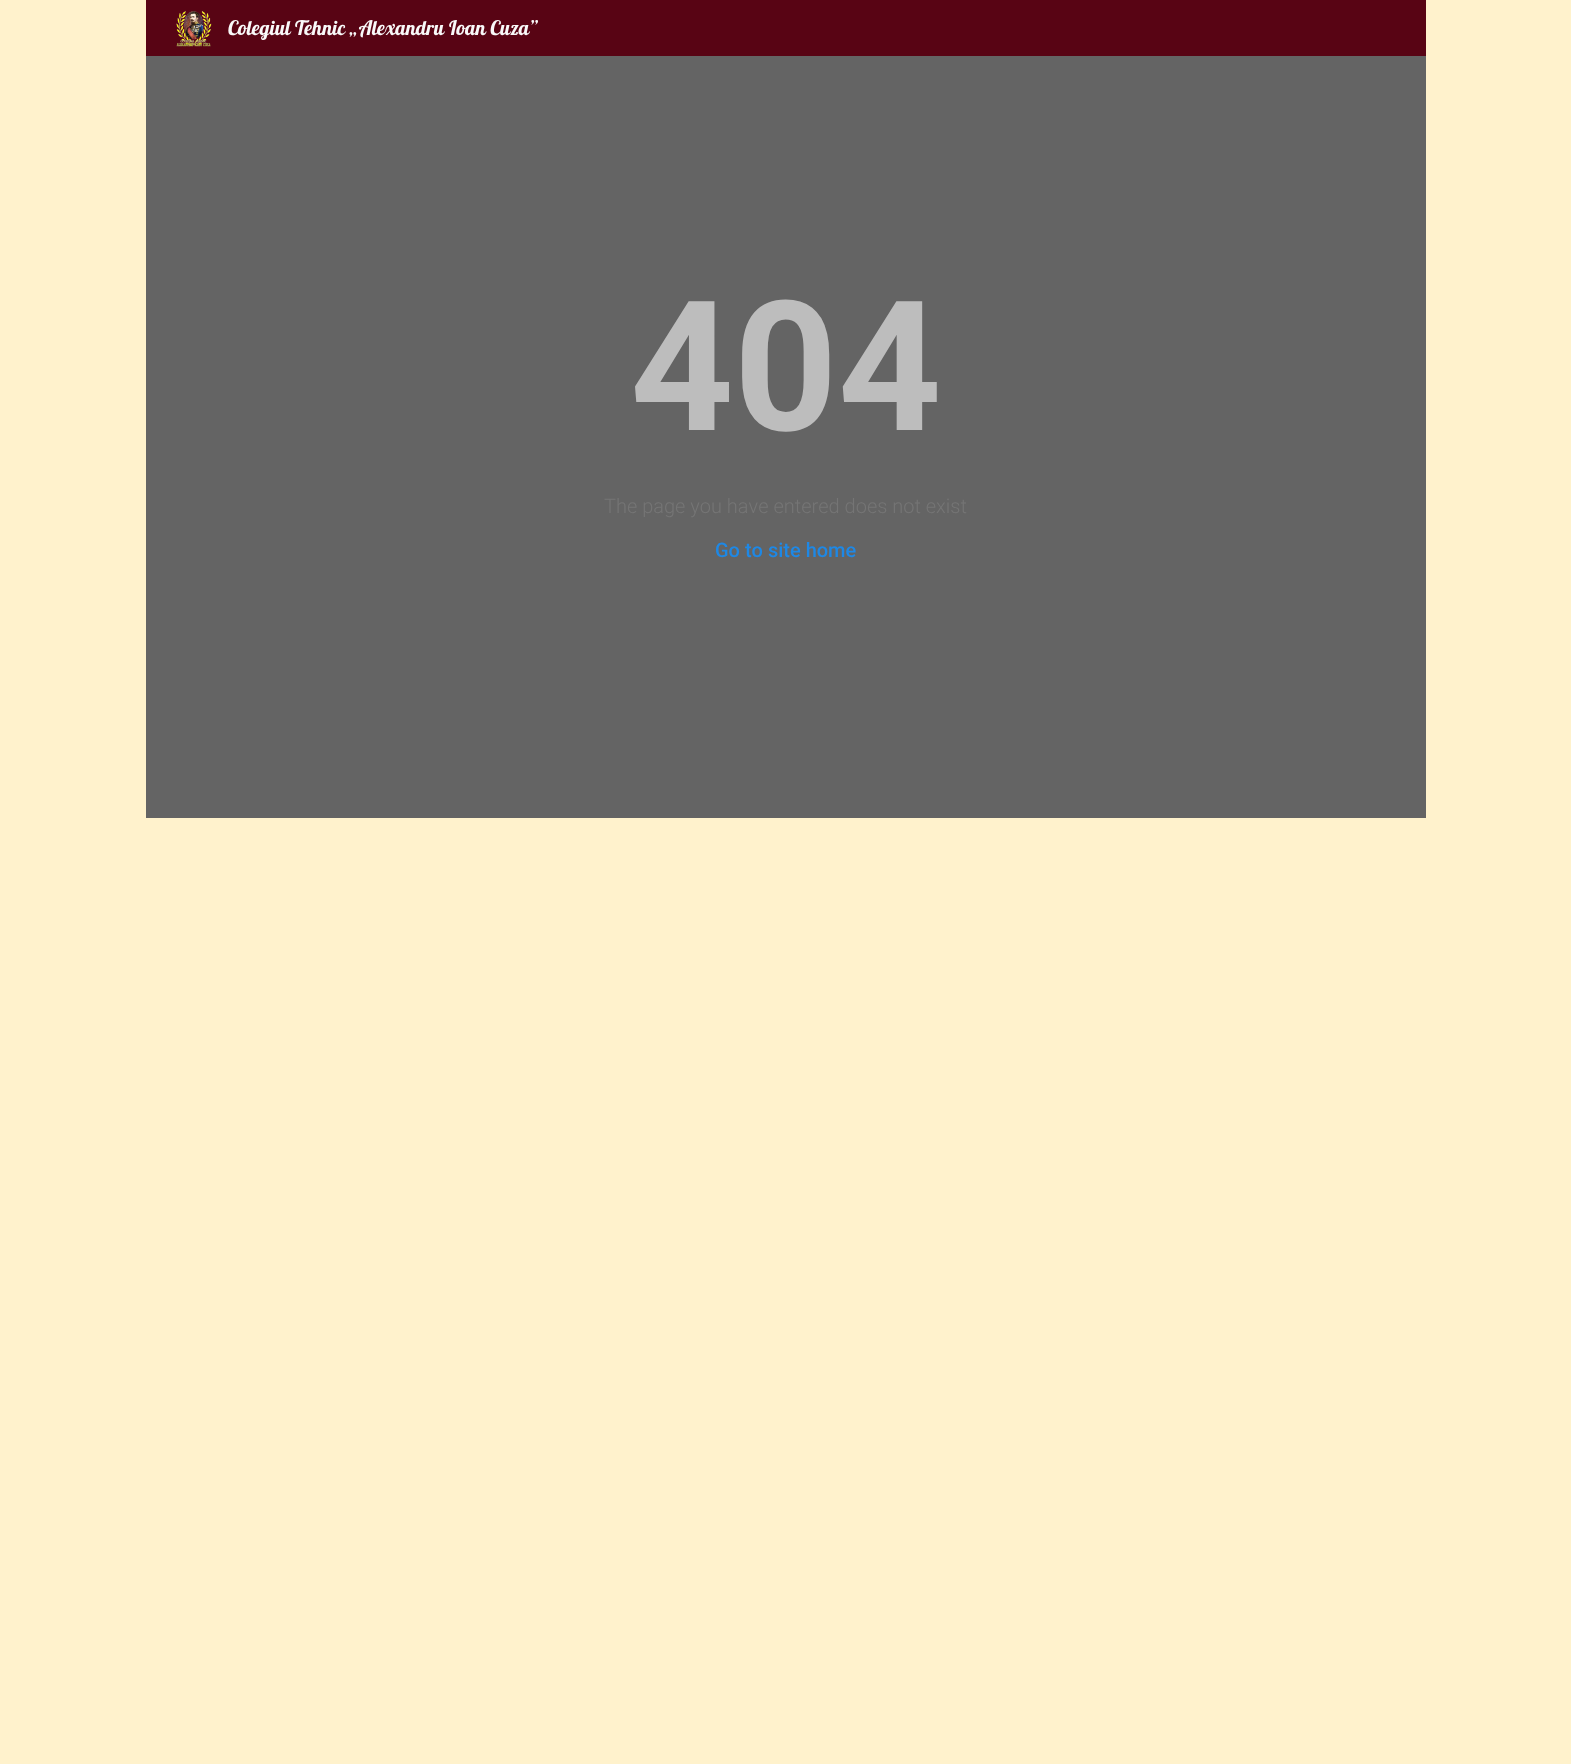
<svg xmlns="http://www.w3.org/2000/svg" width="1571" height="1764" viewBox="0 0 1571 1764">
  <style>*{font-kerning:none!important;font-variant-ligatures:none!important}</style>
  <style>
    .t1 { font: 20px Lobster; fill: #f9f9f9; }
    .t2 { font: bold 181px Roboto; fill: #bdbdbd; }
    .t3 { font: 300 20px Roboto; fill: #757575; }
    .t4 { font: 500 20px Roboto; fill: #1e88e5; }
  </style>
  <rect width="100%" height="100%" fill="#fff2cc"/>
  <rect x="146" y="0" width="1280" height="56" fill="#580414"/>
  <image x="176" y="11" width="36" height="36" href="images/1.png"/>
  <text x="228" y="35" class="t1">Colegiul Tehnic „Alexandru</text>
  <text x="449" y="35" class="t1">Ioan Cuza”</text>
  <rect x="146" y="56" width="1280" height="762" fill="#646464"/>
  <text x="630" y="430" class="t2">404</text>
  <text x="604" y="513" class="t3">The page you have entered does not exist</text>
  <text x="715" y="557" class="t4">Go to site home</text>
</svg>
